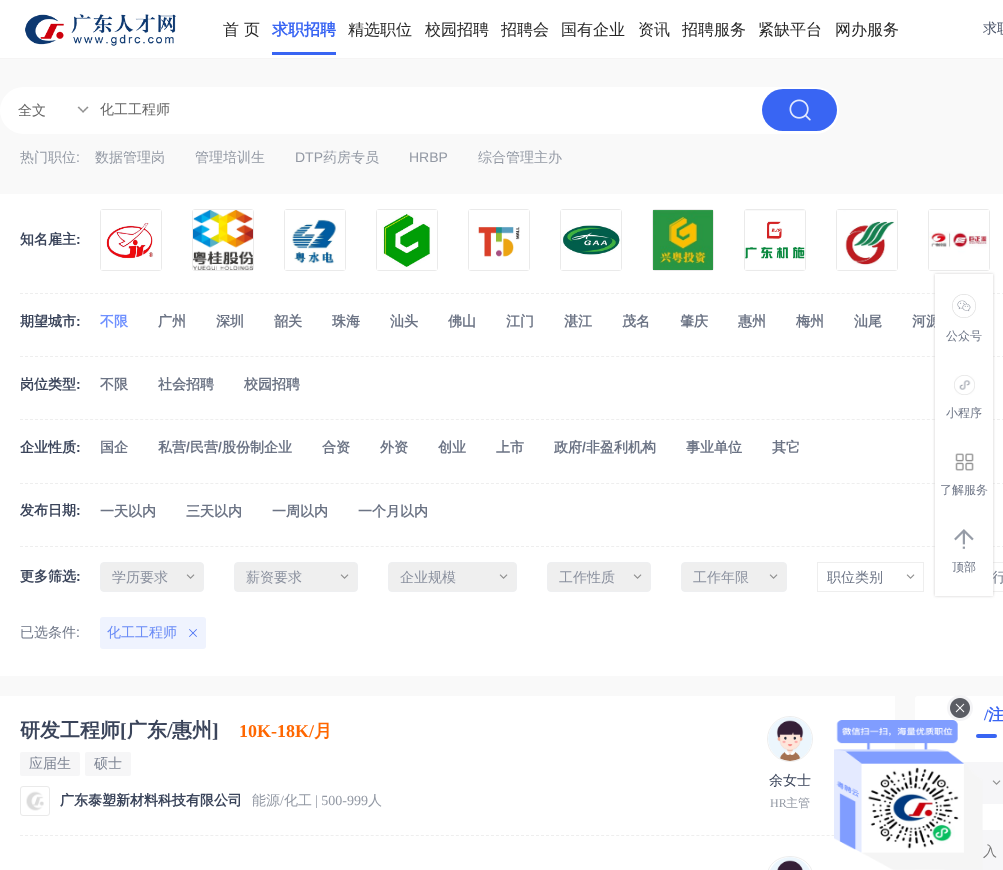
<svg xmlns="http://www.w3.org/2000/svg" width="1003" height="870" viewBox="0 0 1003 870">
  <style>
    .t1 { font: 500 16px WenQuanYi Zen Hei; fill: #262626; }
    .t2 { font: bold 16px WenQuanYi Zen Hei; fill: #3965f3; }
    .t3 { font: 500 14px WenQuanYi Zen Hei; fill: #495267; }
    .t4 { font: 500 14px WenQuanYi Zen Hei; fill: #666; }
    .t5 { font: 500 14px WenQuanYi Zen Hei; fill: #9399a4; }
    .t6 { font: 14px Liberation Sans; fill: #9399a4; }
    .t7 { font: bold 14px WenQuanYi Zen Hei; fill: #3a445a; }
    .t8 { font: bold 14px Liberation Sans; fill: #3a445a; }
    .t9 { font: bold 14px WenQuanYi Zen Hei; fill: #6e90ff; }
    .t10 { font: bold 14px WenQuanYi Zen Hei; fill: #6c7485; }
    .t11 { font: bold 14px Liberation Sans; fill: #6c7485; }
    .t12 { font: 500 14px WenQuanYi Zen Hei; fill: #8a909e; }
    .t13 { font: 500 14px WenQuanYi Zen Hei; fill: #6c7485; }
    .t14 { font: 14px Liberation Sans; fill: #6c7485; }
    .t15 { font: 500 14px WenQuanYi Zen Hei; fill: #688af6; }
    .t16 { font: bold 20px WenQuanYi Zen Hei; fill: #3a445a; }
    .t17 { font: bold 20px Liberation Serif; fill: #3a445a; }
    .t18 { font: bold 18px Liberation Serif; fill: #ff6700; }
    .t19 { font: bold 18px WenQuanYi Zen Hei; fill: #ff6700; }
    .t20 { font: 500 14px WenQuanYi Zen Hei; fill: #7e8594; }
    .t21 { font: 14px Liberation Serif; fill: #9399a4; }
    .t22 { font: 500 14px WenQuanYi Zen Hei; fill: #3a445a; }
    .t23 { font: 12px Liberation Serif; fill: #9399a4; }
    .t24 { font: 500 12px WenQuanYi Zen Hei; fill: #9399a4; }
    .t25 { font: bold 16px Liberation Serif; fill: #3965f3; }
    .t26 { font: 500 14px WenQuanYi Zen Hei; fill: #757575; }
    .t27 { font: 500 12px WenQuanYi Zen Hei; fill: #6c7485; }
  </style>
  <rect width="100%" height="100%" fill="#fff"/>
  <rect x="0" y="58" width="1003" height="1" fill="#f5f4f4"/>
  <image x="25" y="14" width="151" height="32" href="images/1.png"/>
  <text x="223" y="35" class="t1">首</text>
  <text x="244" y="35" class="t1">页</text>
  <rect x="272" y="52" width="64" height="3" fill="#3965f3"/>
  <text x="272" y="35" class="t2">求职招聘</text>
  <text x="348" y="35" class="t1">精选职位</text>
  <text x="425" y="35" class="t1">校园招聘</text>
  <text x="501" y="35" class="t1">招聘会</text>
  <text x="561" y="35" class="t1">国有企业</text>
  <text x="638" y="35" class="t1">资讯</text>
  <text x="682" y="35" class="t1">招聘服务</text>
  <text x="758" y="35" class="t1">紧缺平台</text>
  <text x="835" y="35" class="t1">网办服务</text>
  <text x="983" y="33" class="t3">求职</text>
  <rect x="0" y="59" width="1003" height="135" fill="#f9f9f9"/>
  <rect x="0" y="87" width="839" height="47" rx="23.5" fill="#fff"/>
  <text x="18" y="115" class="t4">全文</text>
  <image x="77" y="106" width="12" height="7" href="images/2.png"/>
  <text x="100" y="114" class="t4">化工工程师</text>
  <rect x="762" y="89" width="75" height="42" rx="21" fill="#3965f3"/>
  <image x="789" y="99" width="22" height="22" href="images/3.png"/>
  <text x="20" y="162" class="t5">热门职位</text>
  <text x="76" y="162" class="t6">:</text>
  <text x="95" y="162" class="t5">数据管理岗</text>
  <text x="195" y="162" class="t5">管理培训生</text>
  <text x="295" y="162" class="t6">DTP</text>
  <text x="323" y="162" class="t5">药房专员</text>
  <text x="409" y="162" class="t6">HRBP</text>
  <text x="478" y="162" class="t5">综合管理主办</text>
  <rect x="0" y="676" width="1003" height="194" fill="#f9f9f9"/>
  <path d="M20 293.5H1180" fill="none" stroke="#eee" stroke-dasharray="3 2.01"/>
  <text x="20" y="244" class="t7">知名雇主</text>
  <text x="76" y="244" class="t8">:</text>
  <rect x="100.5" y="209.5" width="61" height="61" rx="2.5" fill="none" stroke="#eaeaea"/>
  <image x="101" y="210" width="60" height="60" href="images/4.png"/>
  <rect x="192.5" y="209.5" width="61" height="61" rx="2.5" fill="none" stroke="#eaeaea"/>
  <image x="193" y="210" width="60" height="60" href="images/5.png"/>
  <rect x="284.5" y="209.5" width="61" height="61" rx="2.5" fill="none" stroke="#eaeaea"/>
  <image x="285" y="210" width="60" height="60" href="images/6.png"/>
  <rect x="376.5" y="209.5" width="61" height="61" rx="2.5" fill="none" stroke="#eaeaea"/>
  <image x="377" y="210" width="60" height="60" href="images/7.png"/>
  <rect x="468.5" y="209.5" width="61" height="61" rx="2.5" fill="none" stroke="#eaeaea"/>
  <image x="469" y="210" width="60" height="60" href="images/8.png"/>
  <rect x="560.5" y="209.5" width="61" height="61" rx="2.5" fill="none" stroke="#eaeaea"/>
  <image x="561" y="210" width="60" height="60" href="images/9.png"/>
  <rect x="652.5" y="209.5" width="61" height="61" rx="2.5" fill="none" stroke="#eaeaea"/>
  <image x="653" y="210" width="60" height="60" href="images/10.png"/>
  <rect x="744.5" y="209.5" width="61" height="61" rx="2.5" fill="none" stroke="#eaeaea"/>
  <image x="745" y="210" width="60" height="60" href="images/11.png"/>
  <rect x="836.5" y="209.5" width="61" height="61" rx="2.5" fill="none" stroke="#eaeaea"/>
  <image x="837" y="210" width="60" height="60" href="images/12.png"/>
  <rect x="928.5" y="209.5" width="61" height="61" rx="2.5" fill="none" stroke="#eaeaea"/>
  <image x="929" y="210" width="60" height="60" href="images/13.png"/>
  <path d="M20 356.5H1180" fill="none" stroke="#eee" stroke-dasharray="3 2.01"/>
  <text x="20" y="326" class="t7">期望城市</text>
  <text x="76" y="326" class="t8">:</text>
  <text x="100" y="326" class="t9">不限</text>
  <text x="158" y="326" class="t10">广州</text>
  <text x="216" y="326" class="t10">深圳</text>
  <text x="274" y="326" class="t10">韶关</text>
  <text x="332" y="326" class="t10">珠海</text>
  <text x="390" y="326" class="t10">汕头</text>
  <text x="448" y="326" class="t10">佛山</text>
  <text x="506" y="326" class="t10">江门</text>
  <text x="564" y="326" class="t10">湛江</text>
  <text x="622" y="326" class="t10">茂名</text>
  <text x="680" y="326" class="t10">肇庆</text>
  <text x="738" y="326" class="t10">惠州</text>
  <text x="796" y="326" class="t10">梅州</text>
  <text x="854" y="326" class="t10">汕尾</text>
  <text x="912" y="326" class="t10">河源</text>
  <path d="M20 419.5H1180" fill="none" stroke="#eee" stroke-dasharray="3 2.01"/>
  <text x="20" y="389" class="t7">岗位类型</text>
  <text x="76" y="389" class="t8">:</text>
  <text x="100" y="389" class="t10">不限</text>
  <text x="158" y="389" class="t10">社会招聘</text>
  <text x="244" y="389" class="t10">校园招聘</text>
  <path d="M20 483.5H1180" fill="none" stroke="#eee" stroke-dasharray="3 2.01"/>
  <text x="20" y="452" class="t7">企业性质</text>
  <text x="76" y="452" class="t8">:</text>
  <text x="100" y="452" class="t10">国企</text>
  <text x="158" y="452" class="t10">私营</text>
  <text x="186" y="452" class="t11">/</text>
  <text x="190" y="452" class="t10">民营</text>
  <text x="218" y="452" class="t11">/</text>
  <text x="222" y="452" class="t10">股份制企业</text>
  <text x="322" y="452" class="t10">合资</text>
  <text x="380" y="452" class="t10">外资</text>
  <text x="438" y="452" class="t10">创业</text>
  <text x="496" y="452" class="t10">上市</text>
  <text x="554" y="452" class="t10">政府</text>
  <text x="582" y="452" class="t11">/</text>
  <text x="586" y="452" class="t10">非盈利机构</text>
  <text x="686" y="452" class="t10">事业单位</text>
  <text x="772" y="452" class="t10">其它</text>
  <path d="M20 546.5H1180" fill="none" stroke="#eee" stroke-dasharray="3 2.01"/>
  <text x="20" y="515" class="t7">发布日期</text>
  <text x="76" y="515" class="t8">:</text>
  <text x="100" y="516" class="t10">一天以内</text>
  <text x="186" y="516" class="t10">三天以内</text>
  <text x="272" y="516" class="t10">一周以内</text>
  <text x="358" y="516" class="t10">一个月以内</text>
  <text x="20" y="581" class="t7">更多筛选</text>
  <text x="76" y="581" class="t8">:</text>
  <rect x="100.5" y="562.5" width="103" height="29" rx="3.5" fill="#efefef" stroke="#eeeff1"/>
  <text x="112" y="582" class="t12">学历要求</text>
  <image x="186" y="574" width="9" height="5" href="images/14.png"/>
  <rect x="234.5" y="562.5" width="123" height="29" rx="3.5" fill="#efefef" stroke="#eeeff1"/>
  <text x="246" y="582" class="t12">薪资要求</text>
  <image x="340" y="574" width="9" height="5" href="images/14.png"/>
  <rect x="388.5" y="562.5" width="128" height="29" rx="3.5" fill="#efefef" stroke="#eeeff1"/>
  <text x="400" y="582" class="t12">企业规模</text>
  <image x="499" y="574" width="9" height="5" href="images/14.png"/>
  <rect x="547.5" y="562.5" width="103" height="29" rx="3.5" fill="#efefef" stroke="#eeeff1"/>
  <text x="559" y="582" class="t12">工作性质</text>
  <image x="633" y="574" width="9" height="5" href="images/14.png"/>
  <rect x="681.5" y="562.5" width="105" height="29" rx="3.5" fill="#efefef" stroke="#eeeff1"/>
  <text x="693" y="582" class="t12">工作年限</text>
  <image x="769" y="574" width="9" height="5" href="images/14.png"/>
  <rect x="817.5" y="562.5" width="106" height="29" fill="none" stroke="#eee"/>
  <text x="827" y="582" class="t13">职位类别</text>
  <image x="906" y="574" width="9" height="5" href="images/15.png"/>
  <rect x="954.5" y="562.5" width="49" height="29" fill="none" stroke="#eee"/>
  <text x="992" y="582" class="t13">行</text>
  <text x="20" y="637" class="t13">已选条件</text>
  <text x="76" y="637" class="t14">:</text>
  <rect x="100" y="617" width="106" height="32" rx="3" fill="#eff3fe"/>
  <text x="107" y="637" class="t15">化工工程师</text>
  <image x="189" y="629" width="8" height="8" href="images/16.png"/>
  <rect x="0" y="696" width="895" height="174" fill="#fff"/>
  <path d="M20 835.5H875" fill="none" stroke="#eee" stroke-dasharray="3 2.01"/>
  <text x="20" y="737" class="t16">研发工程师</text>
  <text x="120" y="737" class="t17">[</text>
  <text x="127" y="737" class="t16">广东</text>
  <text x="167" y="737" class="t17">/</text>
  <text x="172" y="737" class="t16">惠州</text>
  <text x="212" y="737" class="t17">]</text>
  <text x="239" y="737" class="t18">10K-18K/</text>
  <text x="314" y="737" class="t19">月</text>
  <rect x="20" y="752" width="60" height="24" rx="2" fill="#f6f6f7"/>
  <text x="29" y="768" class="t20">应届生</text>
  <rect x="85" y="752" width="46" height="24" rx="2" fill="#f6f6f7"/>
  <text x="94" y="768" class="t20">硕士</text>
  <rect x="20.5" y="786.5" width="29" height="29" rx="2.5" fill="none" stroke="#eaeaea"/>
  <image x="26" y="791" width="18" height="20" href="images/17.png"/>
  <text x="60" y="805" class="t7">广东泰塑新材料科技有限公司</text>
  <text x="252" y="805" class="t5">能源</text>
  <text x="280" y="805" class="t21">/</text>
  <text x="284" y="805" class="t5">化工</text>
  <text x="315" y="805" class="t21">| 500-999</text>
  <text x="368" y="805" class="t5">人</text>
  <circle cx="790" cy="739" r="22.5" fill="none" stroke="#eee"/>
  <image x="768" y="717" width="44" height="44" href="images/18.png"/>
  <text x="769" y="785" class="t22">余女士</text>
  <text x="770" y="807" class="t23">HR</text>
  <text x="786" y="807" class="t24">主管</text>
  <rect x="767.5" y="856.5" width="45" height="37" rx="22.5" fill="none" stroke="#eee"/>
  <image x="770" y="857" width="40" height="13" href="images/19.png"/>
  <rect x="915" y="696" width="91" height="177" rx="3" fill="#fff"/>
  <text x="984" y="720" class="t25">/</text>
  <text x="988" y="720" class="t2">注</text>
  <rect x="976" y="734" width="21" height="4" rx="2" fill="#3965f3"/>
  <rect x="962" y="763" width="41" height="40" fill="#f6f6f8"/>
  <rect x="934.5" y="762.5" width="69" height="41" fill="none" stroke="#f6f6f8"/>
  <image x="992" y="780" width="9" height="5" href="images/20.png"/>
  <rect x="934" y="830" width="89" height="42" rx="20" fill="#f6f6f8"/>
  <text x="983" y="856" class="t26">入</text>
  <rect x="935" y="274" width="58" height="322" fill="#cccbcb" filter="blur(1.5px)"/>
  <rect x="935" y="274" width="58" height="322" fill="#fff"/>
  <image x="952" y="294" width="24" height="24" href="images/21.png"/>
  <text x="946" y="340" class="t27">公众号</text>
  <image x="954" y="375" width="21" height="20" href="images/22.png"/>
  <text x="946" y="417" class="t27">小程序</text>
  <image x="955" y="453" width="19" height="18" href="images/23.png"/>
  <text x="940" y="494" class="t27">了解服务</text>
  <image x="954" y="529" width="20" height="20" href="images/24.png"/>
  <text x="952" y="571" class="t27">顶部</text>
  <image x="834" y="720" width="149" height="150" href="images/26.png"/>
  <image x="947" y="695" width="26" height="26" href="images/25.png"/>
</svg>
